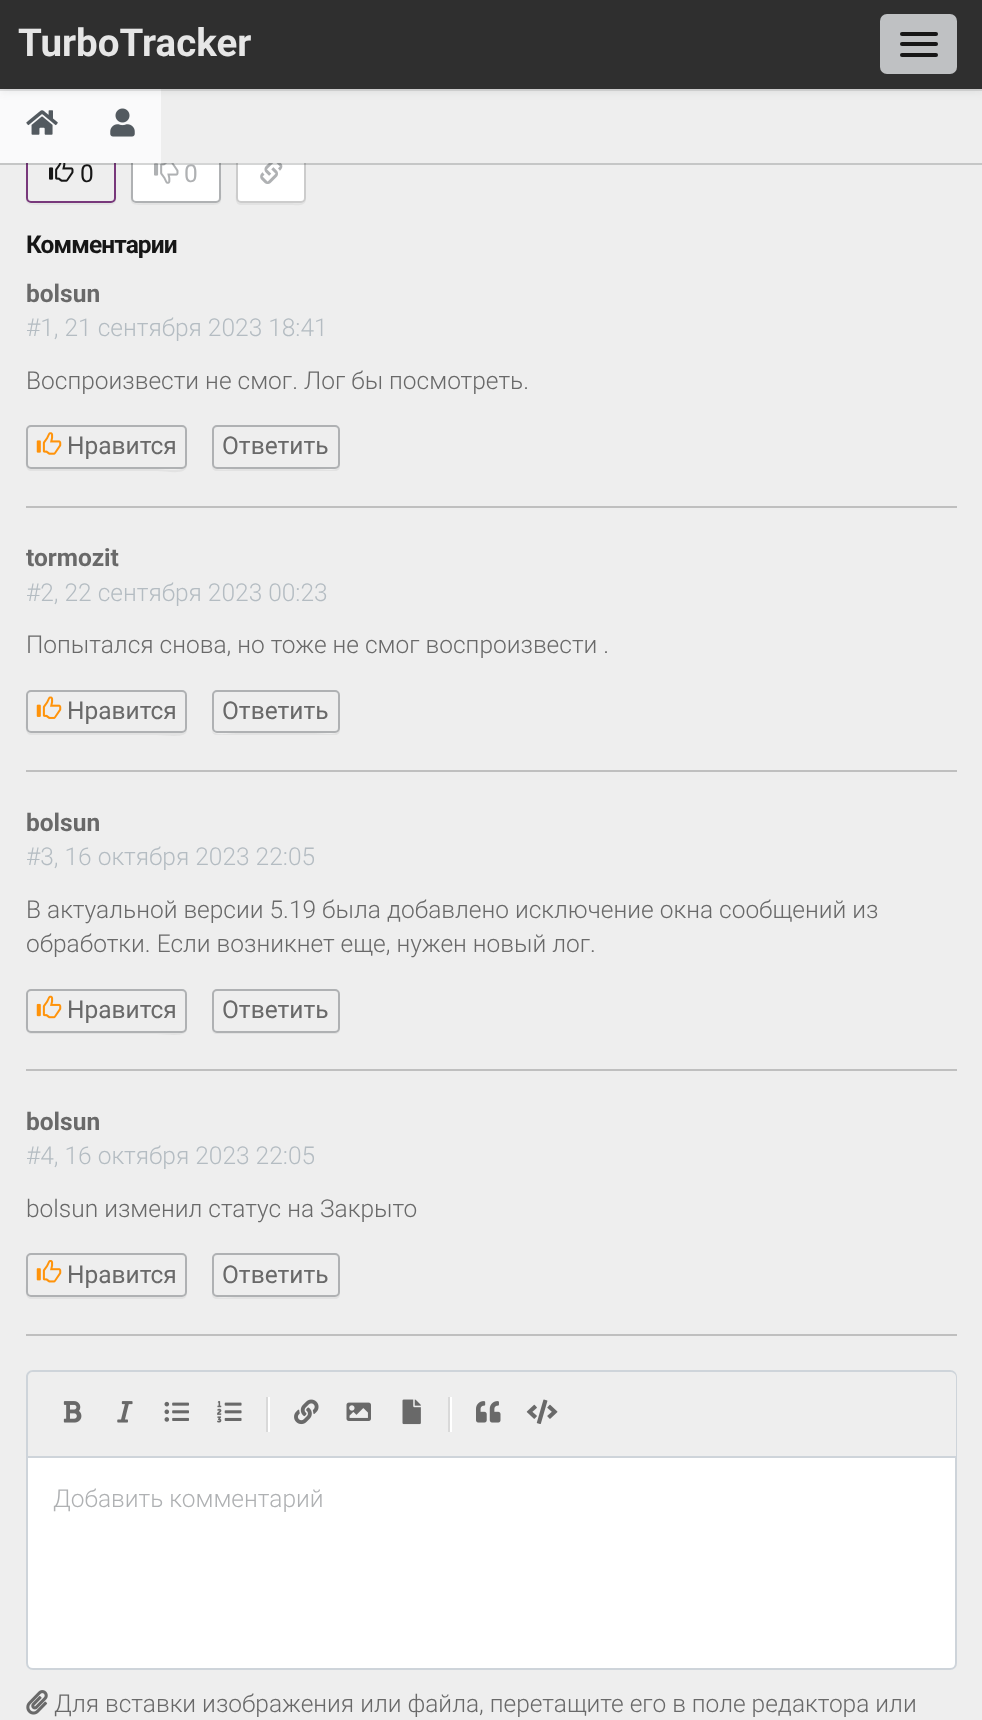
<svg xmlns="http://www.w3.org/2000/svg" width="982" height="1720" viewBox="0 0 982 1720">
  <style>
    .t1 { font: bold 38.5px Roboto; fill: #e6e6e6; }
    .t2 { font: 24.5px Roboto; fill: #161616; }
    .t3 { font: 24.5px Roboto; fill: #afb1b3; }
    .t4 { font: bold 24.5px Roboto; letter-spacing: -0.9px; fill: #161616; }
    .t5 { font: bold 24.5px Roboto; fill: #696969; }
    .t6 { font: 300 24.5px Roboto; fill: #b4bcc2; }
    .t7 { font: 300 24.5px Roboto; fill: #696969; }
    .t8 { font: 24.5px Roboto; fill: #696969; }
    .t9 { font: 300 24.5px Roboto; fill: #afb1b3; }
  </style>
  <rect width="100%" height="100%" fill="#eee"/>
  <path d="M26 148V183C26 206 22 205 44 205H98C120 205 116 206 116 183V158C116 157 117 150 115 148L116 181C116 204 119 203 97 203H45C27 203 26 206 26 190Z" fill="#e2e2e2"/>
  <rect x="27" y="145" width="88" height="57" rx="4" fill="none" stroke="#78387b" stroke-width="2"/>
  <path d="M131 148V183C131 206 127 205 149 205H203C225 205 221 206 221 183V158C221 157 222 150 220 148V181C220 204 224 203 202 203H150C132 203 131 206 131 190Z" fill="#e2e2e2"/>
  <rect x="132" y="145" width="88" height="57" rx="4" fill="#fff" stroke="#afb1b3" stroke-width="2"/>
  <rect x="0" y="89" width="161" height="74" fill="#fafafb"/>
  <rect x="0" y="2" width="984" height="89" fill="#3b40451a" filter="blur(5px)"/>
  <path d="M0 89V91H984V2V89Z" fill="#0c0d0e1a"/>
  <rect x="0" y="0" width="982" height="89" fill="#2f2f2f"/>
  <text x="18" y="56" class="t1">TurboTracker</text>
  <rect x="880" y="14" width="77" height="60" rx="7" fill="#bfc1c3"/>
  <rect x="900" y="32" width="38" height="4" rx="2" fill="#161616"/>
  <rect x="900" y="42" width="38" height="4" rx="2" fill="#161616"/>
  <rect x="900" y="53" width="38" height="4" rx="2" fill="#161616"/>
  <image x="49" y="163" width="25" height="19" href="images/3.png"/>
  <image x="154" y="163" width="25" height="21" href="images/4.png"/>
  <path d="M236 148V192C236 195 234 204 240 205H291C296 205 306 207 306 199C304 205 295 203 291 203H251C236 203 236 204 236 190Z" fill="#e2e2e2"/>
  <rect x="237" y="145" width="68" height="57" rx="4" fill="#fff" stroke="#ccc" stroke-width="2"/>
  <image x="260" y="163" width="23" height="21" href="images/5.png"/>
  <rect x="0" y="163" width="982" height="2" fill="#3b40451a"/>
  <rect x="0" y="163" width="982" height="2" fill="#0c0d0e1a"/>
  <rect x="161" y="144" width="145" height="19" fill="#eee"/>
  <image x="26" y="110" width="32" height="25" href="images/1.png"/>
  <image x="110" y="108" width="25" height="29" href="images/2.png"/>
  <text x="80" y="182" class="t2">0</text>
  <text x="184" y="182" class="t3">0</text>
  <text x="26" y="253" class="t4">Комментарии</text>
  <text x="26" y="302" class="t5">bolsun</text>
  <text x="26" y="336" class="t6">#1, 21 сентября 2023 18:41</text>
  <text x="26" y="389" class="t7">Воспроизвести не смог. Лог бы посмотреть.</text>
  <path d="M26 430V455C26 459 24 471 31 471H157C168 471 187 476 187 465C184 473 161 469 157 469H32C26 469 26 462 26 458Z" fill="#e2e2e2"/>
  <rect x="27" y="426" width="159" height="42" rx="4" fill="none" stroke="#afb1b3" stroke-width="2"/>
  <image x="36" y="432" width="26" height="23" href="images/6.png"/>
  <text x="67" y="454" class="t8">Нравится</text>
  <path d="M212 465V466C212 469 214 471 217 471H335C338 471 340 469 340 466V432L339 430V465C338 473 322 469 315 469H237C231 469 214 472 212 465Z" fill="#e2e2e2"/>
  <rect x="213" y="426" width="126" height="42" rx="4" fill="none" stroke="#afb1b3" stroke-width="2"/>
  <text x="222" y="454" class="t8">Ответить</text>
  <rect x="26" y="506" width="931" height="2" fill="#bfbfbf"/>
  <text x="26" y="566" class="t5">tormozit</text>
  <text x="26" y="601" class="t6">#2, 22 сентября 2023 00:23</text>
  <text x="26" y="653" class="t7">Попытался снова, но тоже не смог воспроизвести .</text>
  <path d="M26 694V719C26 723 24 735 31 735H157C167 735 187 739 187 730C186 732 184 733 182 733H32C29 733 26 731 26 728Z" fill="#e2e2e2"/>
  <rect x="27" y="691" width="159" height="41" rx="4" fill="none" stroke="#afb1b3" stroke-width="2"/>
  <image x="36" y="696" width="26" height="23" href="images/7.png"/>
  <text x="67" y="719" class="t8">Нравится</text>
  <path d="M212 730C212 733 214 735 217 735H335C338 735 340 733 340 730V696L339 694V729C338 737 322 733 315 733H237C231 733 214 737 212 730Z" fill="#e2e2e2"/>
  <rect x="213" y="691" width="126" height="41" rx="4" fill="none" stroke="#afb1b3" stroke-width="2"/>
  <text x="222" y="719" class="t8">Ответить</text>
  <rect x="26" y="770" width="931" height="2" fill="#bfbfbf"/>
  <text x="26" y="831" class="t5">bolsun</text>
  <text x="26" y="865" class="t6">#3, 16 октября 2023 22:05</text>
  <text x="26" y="918" class="t7">В актуальной версии 5.19 была добавлено исключение окна сообщений из</text>
  <text x="26" y="952" class="t7">обработки. Если возникнет еще, нужен новый лог.</text>
  <path d="M26 994V1018C26 1022 24 1034 31 1034H157C167 1034 187 1038 187 1029C186 1031 184 1032 182 1032H32C29 1032 26 1030 26 1027Z" fill="#e2e2e2"/>
  <rect x="27" y="990" width="159" height="42" rx="4" fill="none" stroke="#afb1b3" stroke-width="2"/>
  <image x="36" y="995" width="26" height="24" href="images/8.png"/>
  <text x="67" y="1018" class="t8">Нравится</text>
  <path d="M212 1029C212 1032 214 1034 217 1034H335C338 1034 340 1032 340 1029V996L339 994V1028L338 1031L335 1032H217C215 1032 213 1031 212 1029Z" fill="#e2e2e2"/>
  <rect x="213" y="990" width="126" height="42" rx="4" fill="none" stroke="#afb1b3" stroke-width="2"/>
  <text x="222" y="1018" class="t8">Ответить</text>
  <rect x="26" y="1069" width="931" height="2" fill="#bfbfbf"/>
  <text x="26" y="1130" class="t5">bolsun</text>
  <text x="26" y="1164" class="t6">#4, 16 октября 2023 22:05</text>
  <text x="26" y="1217" class="t7">bolsun изменил статус на Закрыто</text>
  <path d="M26 1258V1283C26 1287 24 1299 31 1299H182C185 1299 187 1296 187 1293C186 1295 184 1297 182 1297H32C29 1297 26 1294 26 1292Z" fill="#e2e2e2"/>
  <rect x="27" y="1254" width="159" height="42" rx="4" fill="none" stroke="#afb1b3" stroke-width="2"/>
  <image x="36" y="1260" width="26" height="23" href="images/9.png"/>
  <text x="67" y="1283" class="t8">Нравится</text>
  <path d="M212 1293V1294C212 1297 214 1299 217 1299H335C338 1299 340 1297 340 1294V1260L339 1258L340 1286C340 1290 340 1297 334 1297H237C231 1297 214 1300 212 1293Z" fill="#e2e2e2"/>
  <rect x="213" y="1254" width="126" height="42" rx="4" fill="none" stroke="#afb1b3" stroke-width="2"/>
  <text x="222" y="1283" class="t8">Ответить</text>
  <rect x="26" y="1334" width="931" height="2" fill="#bfbfbf"/>
  <path d="M33 1370H950C954 1370 957 1373 957 1377V1456H26V1377C26 1373 29 1370 33 1370ZM33 1372H950C953 1372 956 1374 956 1377V1456H28V1377C28 1374 30 1372 33 1372Z" fill="#ced4da" fill-rule="evenodd"/>
  <image x="63" y="1401" width="19" height="22" href="images/10.png"/>
  <image x="117" y="1401" width="16" height="22" href="images/11.png"/>
  <image x="164" y="1401" width="25" height="21" href="images/12.png"/>
  <image x="217" y="1401" width="25" height="22" href="images/13.png"/>
  <rect x="268" y="1397" width="2" height="35" fill="#fff"/>
  <rect x="266" y="1397" width="2" height="35" fill="#d9d9d9"/>
  <image x="294" y="1399" width="25" height="26" href="images/14.png"/>
  <image x="346" y="1402" width="25" height="19" href="images/15.png"/>
  <image x="402" y="1399" width="19" height="26" href="images/16.png"/>
  <rect x="450" y="1397" width="2" height="35" fill="#fff"/>
  <rect x="448" y="1397" width="2" height="35" fill="#d9d9d9"/>
  <image x="476" y="1401" width="25" height="22" href="images/17.png"/>
  <image x="526" y="1399" width="32" height="25" href="images/18.png"/>
  <path d="M27 1457H956V1663C956 1666.5 953.5 1669 950 1669H33C29.5 1669 27 1666.5 27 1663Z" fill="#fff" stroke="#ced4da" stroke-width="2"/>
  <text x="53" y="1507" class="t9">Добавить комментарий</text>
  <image x="26" y="1690" width="22" height="25" href="images/19.png"/>
  <text x="54" y="1712" class="t7">Для вставки изображения или файла, перетащите его в поле редактора или</text>
</svg>
